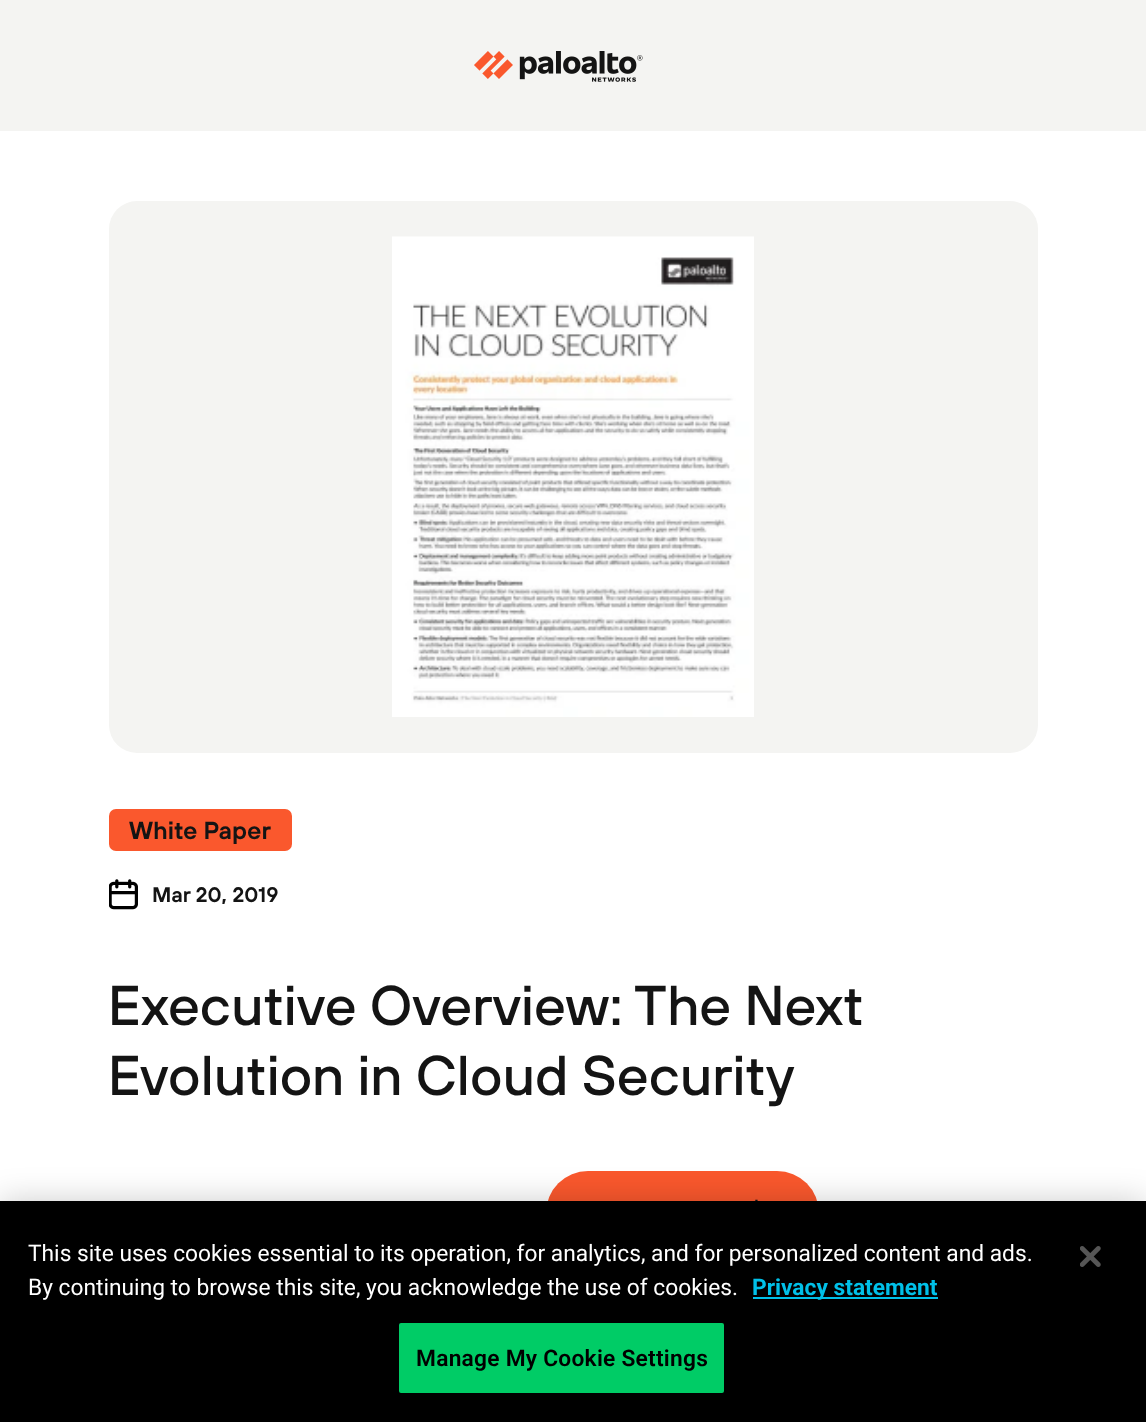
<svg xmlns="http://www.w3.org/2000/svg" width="1146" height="1422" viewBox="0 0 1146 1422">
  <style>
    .t1 { font: 600 24.5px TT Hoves; fill: #141414; }
    .t2 { font: 600 21px TT Hoves; fill: #141414; }
    .t3 { font: 500 56px TT Hoves; fill: #141414; }
    .t4 { font: 22.75px Roboto; fill: #fff; }
    .t5 { font: bold 22.75px Roboto; fill: #00c0e8; }
    .t6 { font: 600 22.75px Roboto; letter-spacing: 0.25px; fill: #000; }
  </style>
  <rect width="100%" height="100%" fill="#fff"/>
  <rect x="0" y="0" width="1146" height="131" fill="#f4f4f2"/>
  <image x="474" y="51" width="169" height="31" href="images/1.png"/>
  <rect x="109" y="201" width="929" height="552" rx="28" fill="#f4f4f2"/>
  <image x="392" y="236" width="362" height="481" href="images/2.png"/>
  <rect x="109" y="809" width="183" height="42" rx="7" fill="#fa582d"/>
  <text x="129" y="839" class="t1">White Paper</text>
  <image x="109" y="879" width="29" height="31" href="images/3.png"/>
  <text x="152" y="902" class="t2">Mar 20, 2019</text>
  <text x="108" y="1025" class="t3">Executive Overview: The Next</text>
  <text x="108" y="1095" class="t3">Evolution in Cloud Security</text>
  <rect x="546" y="1171" width="273" height="84" rx="42" fill="#fa582d"/>
  <image x="755" y="1199" width="3" height="2" href="images/4.png"/>
  <rect x="0" y="1201" width="1146" height="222" fill="#00000033" filter="blur(16px)"/>
  <rect x="0" y="1201" width="1146" height="221" fill="#000"/>
  <text x="28" y="1261" class="t4">This site uses cookies essential to its operation, for analytics, and for personalized content and ads.</text>
  <text x="28" y="1295" class="t4">By continuing to browse this site, you acknowledge the use of cookies.</text>
  <rect x="753" y="1297" width="185" height="2" fill="#00c0e8"/>
  <text x="752" y="1295" class="t5">Privacy statement</text>
  <rect x="398" y="1322" width="327" height="72" rx="3" fill="#0c6" stroke="#000" stroke-width="2"/>
  <text x="416" y="1366" class="t6">Manage My Cookie Settings</text>
  <image x="1080" y="1246" width="21" height="21" href="images/5.png"/>
</svg>
